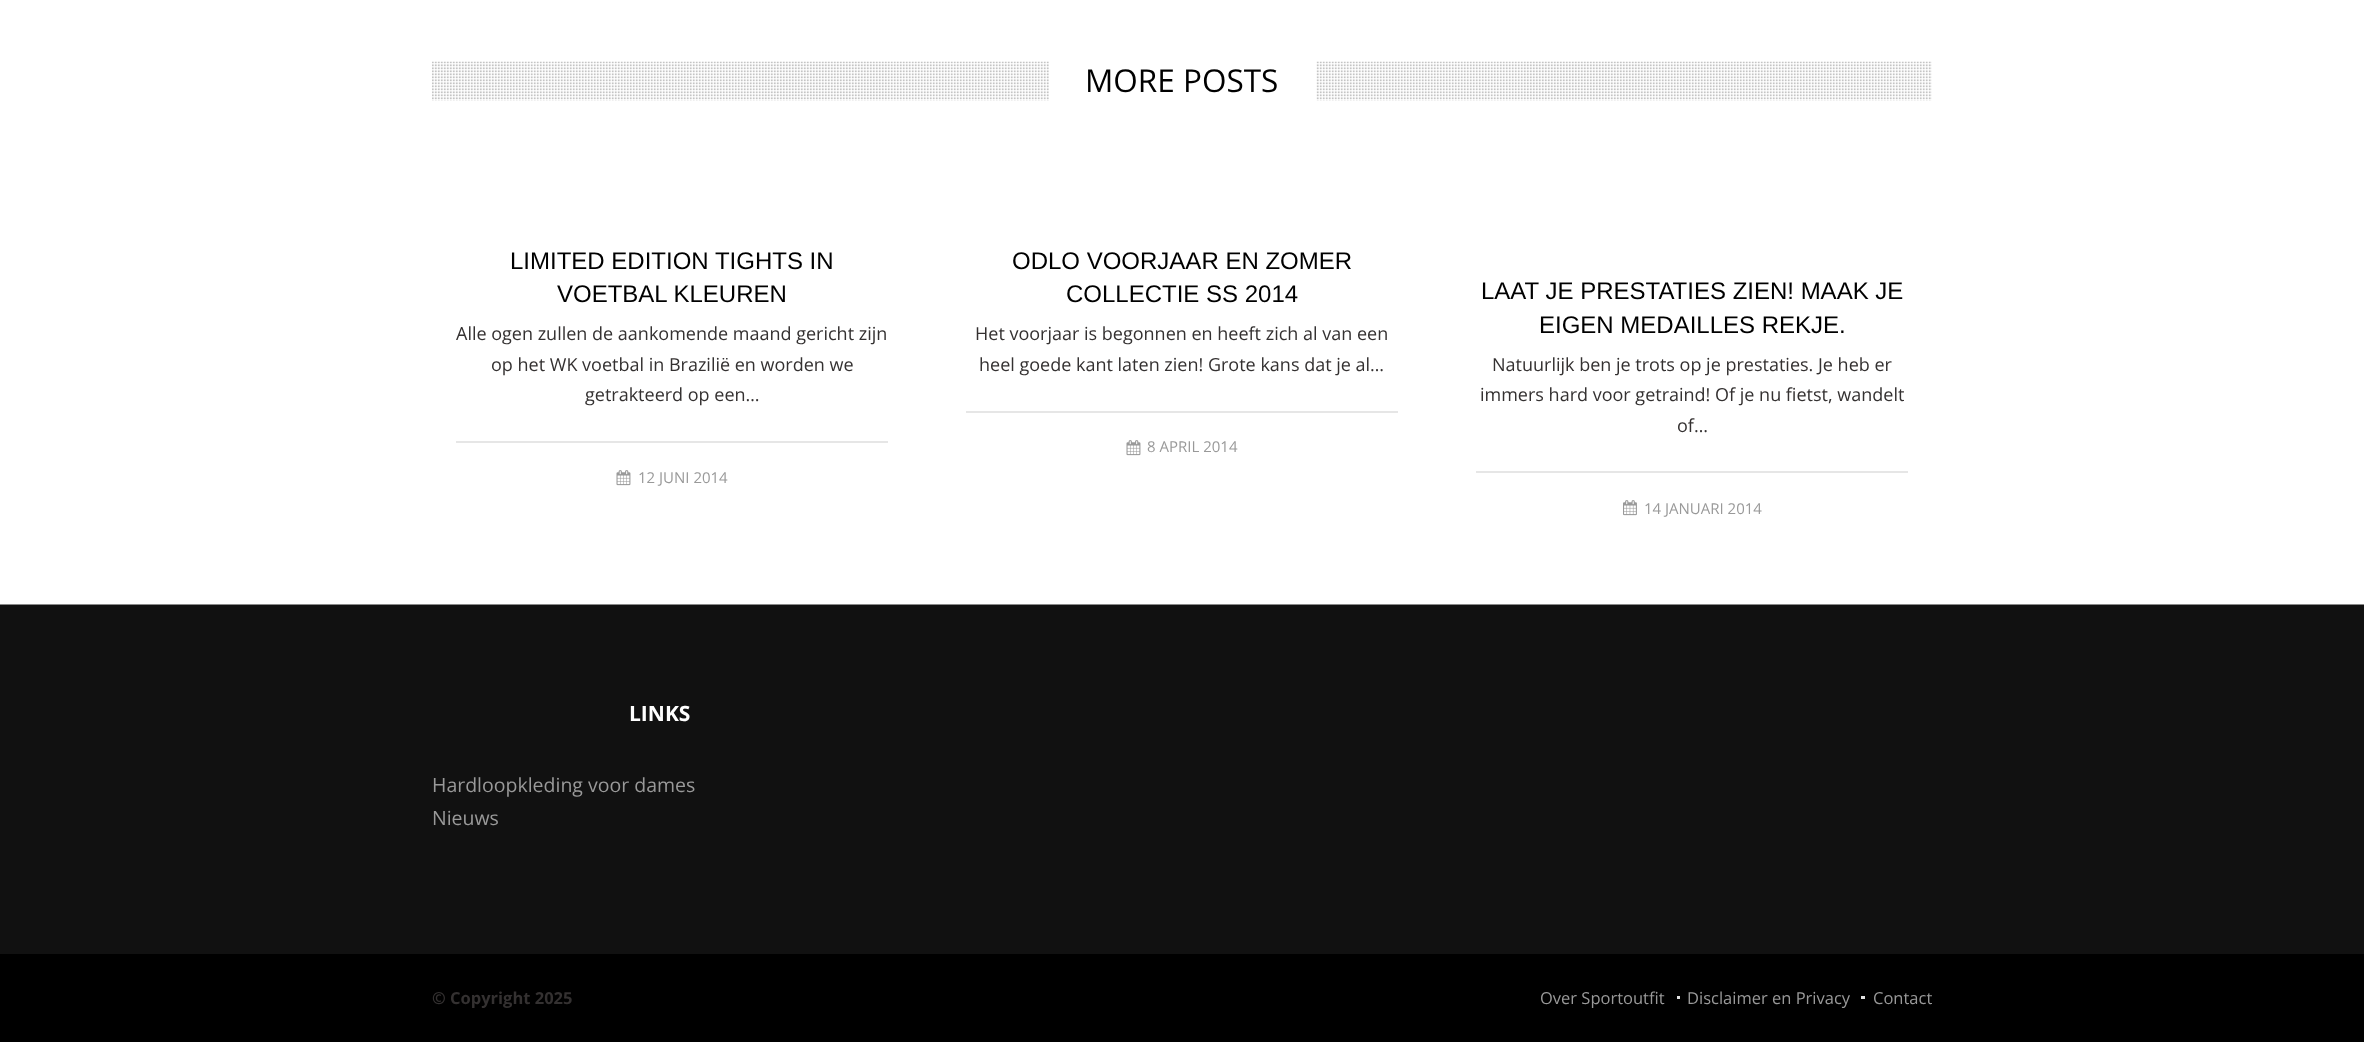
<svg xmlns="http://www.w3.org/2000/svg" width="2364" height="1042" viewBox="0 0 2364 1042">
  <style>
    .t1 { font: 31.5px Open Sans; fill: #000; }
    .t2 { font: 24px Liberation Sans; fill: #000; }
    .t3 { font: 18px Open Sans; fill: #343131; }
    .t4 { font: 15px Open Sans; fill: #999; }
    .t5 { font: bold 21px Open Sans; fill: #fff; }
    .t6 { font: 19.5px Open Sans; fill: #999; }
    .t7 { font: bold 16.5px Open Sans; fill: #343131; }
    .t8 { font: 16.5px Open Sans; fill: #999; }
  </style>
  <rect width="100%" height="100%" fill="#fff"/>
  <image x="432" y="61" width="1500" height="40" href="images/1.png"/>
  <rect x="1049" y="61" width="267" height="40" fill="#fff"/>
  <text x="1085" y="92" class="t1">MORE POSTS</text>
  <text x="510" y="269" class="t2">LIMITED EDITION TIGHTS IN</text>
  <text x="557" y="302" class="t2">VOETBAL KLEUREN</text>
  <text x="456" y="340" class="t3">Alle ogen zullen de aankomende maand gericht zijn</text>
  <text x="491" y="371" class="t3">op het WK voetbal in Brazilië en worden we</text>
  <text x="585" y="401" class="t3">getrakteerd op een…</text>
  <rect x="456" y="441" width="432" height="2" fill="#e6e6e6"/>
  <image x="616" y="470" width="15" height="16" href="images/2.png"/>
  <text x="638" y="483" class="t4">12 JUNI 2014</text>
  <text x="1012" y="269" class="t2">ODLO VOORJAAR EN ZOMER</text>
  <text x="1066" y="302" class="t2">COLLECTIE SS 2014</text>
  <text x="975" y="340" class="t3">Het voorjaar is begonnen en heeft zich al van een</text>
  <text x="979" y="371" class="t3">heel goede kant laten zien! Grote kans dat je al…</text>
  <rect x="966" y="411" width="432" height="2" fill="#e6e6e6"/>
  <image x="1126" y="440" width="15" height="16" href="images/2.png"/>
  <text x="1147" y="452" class="t4">8 APRIL 2014</text>
  <text x="1481" y="299" class="t2">LAAT JE PRESTATIES ZIEN! MAAK JE</text>
  <text x="1539" y="333" class="t2">EIGEN MEDAILLES REKJE.</text>
  <text x="1492" y="371" class="t3">Natuurlijk ben je trots op je prestaties. Je heb er</text>
  <text x="1480" y="401" class="t3">immers hard voor getraind! Of je nu fietst, wandelt</text>
  <text x="1677" y="432" class="t3">of…</text>
  <rect x="1476" y="471" width="432" height="2" fill="#e6e6e6"/>
  <image x="1623" y="500" width="14" height="16" href="images/3.png"/>
  <text x="1644" y="514" class="t4">14 JANUARI 2014</text>
  <rect x="0" y="605" width="2364" height="349" fill="#111"/>
  <rect x="0" y="604" width="2364" height="1" fill="#888"/>
  <text x="629" y="721" class="t5">LINKS</text>
  <text x="432" y="792" class="t6">Hardloopkleding voor dames</text>
  <text x="432" y="825" class="t6">Nieuws</text>
  <rect x="0" y="954" width="2364" height="88" fill="#000"/>
  <text x="432" y="1004" class="t7">© Copyright 2025</text>
  <text x="1540" y="1004" class="t8">Over Sportoutfit</text>
  <rect x="1677" y="996" width="3" height="3" fill="#e2e2e2"/>
  <text x="1687" y="1004" class="t8">Disclaimer en Privacy</text>
  <rect x="1861" y="996" width="4" height="3" fill="#e2e2e2"/>
  <text x="1873" y="1004" class="t8">Contact</text>
</svg>
